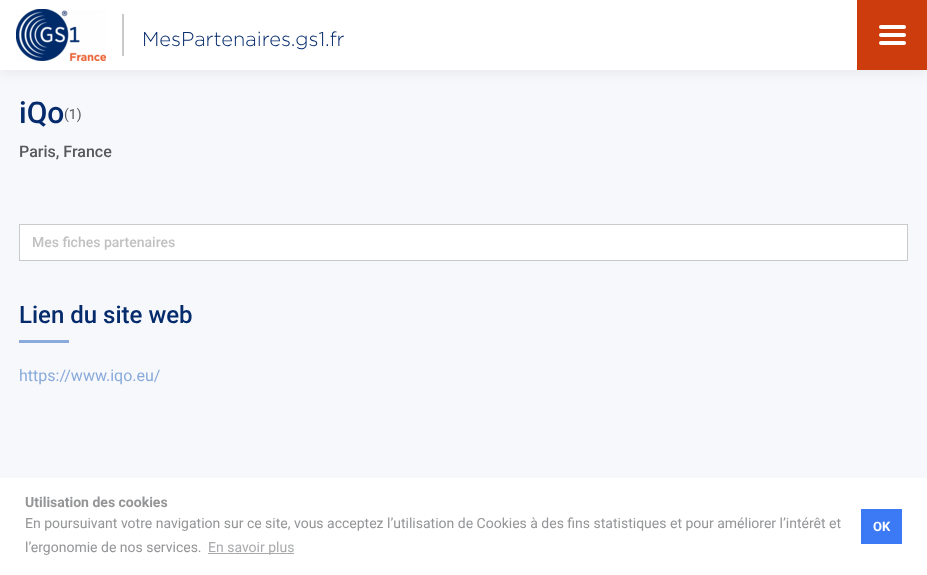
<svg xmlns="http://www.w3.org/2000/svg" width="927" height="575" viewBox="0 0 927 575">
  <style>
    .t1 { font: 300 20px Gotham; fill: #052b6c; }
    .t2 { font: 500 30px Roboto; fill: #052b6c; }
    .t3 { font: 14px Roboto; fill: #57585a; }
    .t4 { font: 500 16px Roboto; fill: #57585a; }
    .t5 { font: 500 14px Roboto; fill: #c1c1c2; }
    .t6 { font: 500 24px Roboto; fill: #052b6c; }
    .t7 { font: 16px Roboto; fill: #89aadb; }
    .t8 { font: bold 14px Roboto; fill: #949597; }
    .t9 { font: 14px Roboto; fill: #949597; }
    .t10 { font: 14px Roboto; fill: #a9aaac; }
    .t11 { font: bold 13px Roboto; fill: #fff; }
  </style>
  <rect width="100%" height="100%" fill="#f7f8fb"/>
  <rect x="0" y="2" width="927" height="70" fill="#57585a1a" filter="blur(7px)"/>
  <rect x="0" y="0" width="857" height="70" fill="#fff"/>
  <image x="16" y="9" width="90" height="52" href="images/1.png"/>
  <rect x="122" y="14" width="2" height="42" fill="#cacaca"/>
  <text x="142" y="46" class="t1">MesPartenaires.gs1.fr</text>
  <rect x="857" y="0" width="70" height="70" fill="#cd3c0d"/>
  <rect x="879" y="25" width="27" height="4" rx="2" fill="#fff"/>
  <rect x="879" y="33" width="27" height="4" rx="2" fill="#fff"/>
  <rect x="879" y="41" width="27" height="4" rx="2" fill="#fff"/>
  <text x="19" y="123" class="t2">iQo</text>
  <text x="64" y="119" class="t3">(1)</text>
  <text x="19" y="157" class="t4">Paris, France</text>
  <rect x="19.5" y="224.5" width="888" height="36" fill="#fff" stroke="#cacaca"/>
  <text x="32" y="247" class="t5">Mes fiches partenaires</text>
  <text x="19" y="323" class="t6">Lien du site web</text>
  <rect x="19" y="340" width="50" height="3" fill="#89aadb"/>
  <text x="19" y="381" class="t7">https://www.iqo.eu/</text>
  <rect x="0" y="478" width="927" height="97" fill="#fff"/>
  <text x="25" y="507" class="t8">Utilisation des cookies</text>
  <text x="25" y="528" class="t9">En poursuivant votre navigation sur ce site, vous acceptez l’utilisation de Cookies à des fins statistiques et pour améliorer l’intérêt et</text>
  <text x="25" y="552" class="t9">l’ergonomie de nos services.</text>
  <rect x="208" y="553" width="86" height="1" fill="#a9aaac"/>
  <text x="208" y="552" class="t10">En savoir plus</text>
  <rect x="861" y="509" width="41" height="35" fill="#3b7af4"/>
  <text x="873" y="531" class="t11">OK</text>
</svg>
